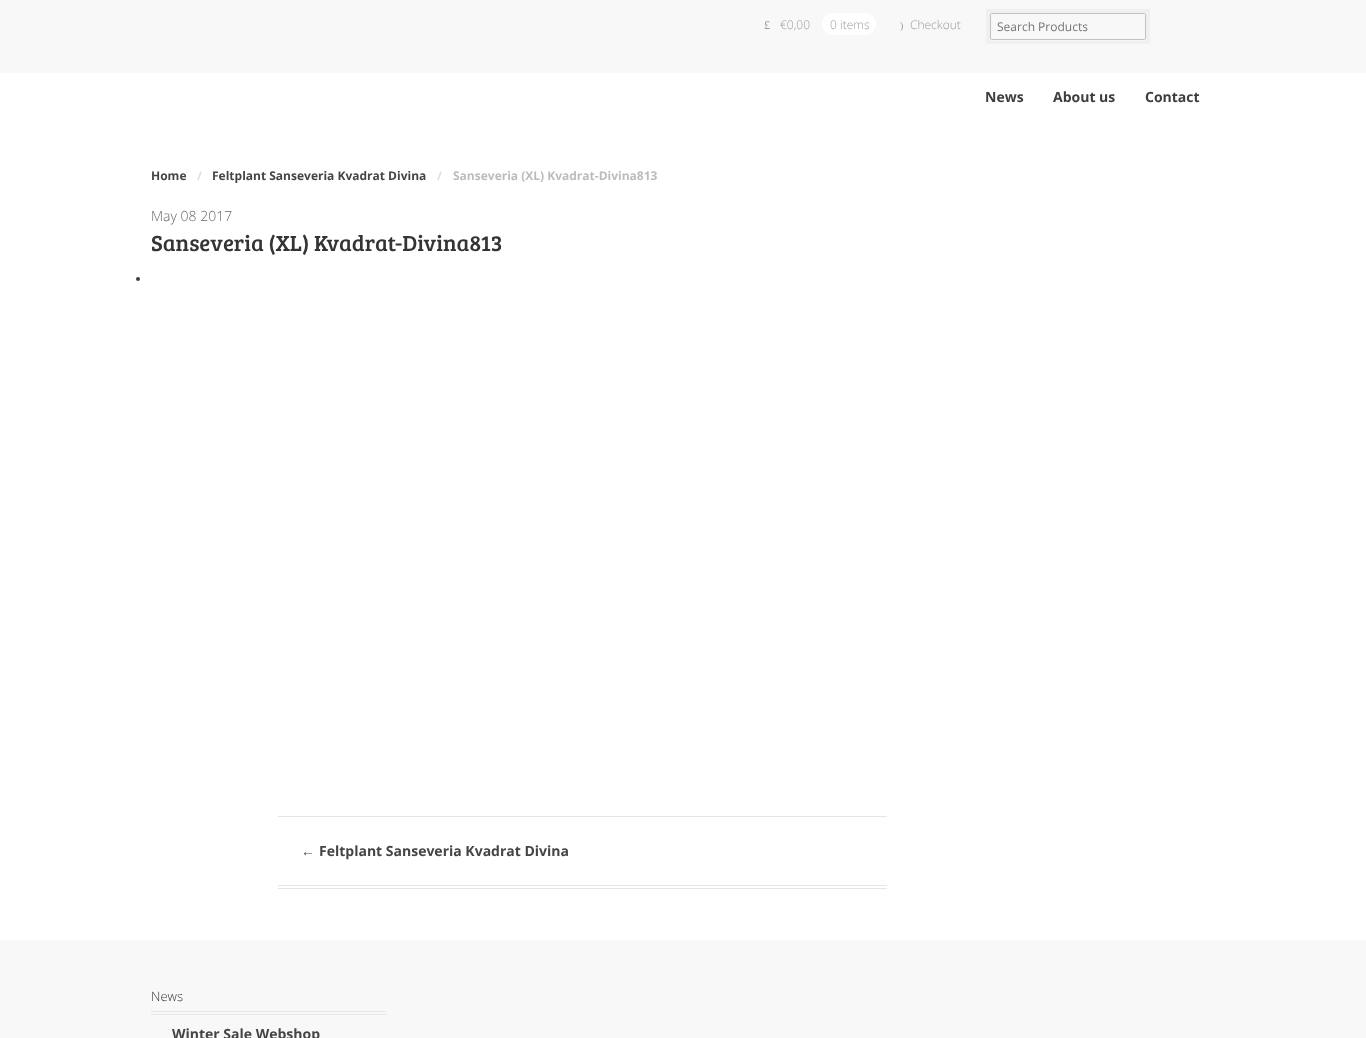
<svg xmlns="http://www.w3.org/2000/svg" width="1366" height="1038" viewBox="0 0 1366 1038">
  <style>
    .t1 { font: 12px Liberation Serif; fill: #9a9a9a; }
    .t2 { font: 300 12px Open Sans; fill: #9a9a9a; }
    .t3 { font: 10px Liberation Serif; fill: #9a9a9a; }
    .t4 { font: 12px Open Sans; fill: #757575; }
    .t5 { font: bold 14px Open Sans; fill: #3e3e3e; }
    .t6 { font: bold 12px Open Sans; fill: #454545; }
    .t7 { font: bold 12px Open Sans; fill: #dedede; }
    .t8 { font: bold 12px Open Sans; fill: #bcbcbc; }
    .t9 { font: 300 14px Open Sans; fill: #676767; }
    .t10 { font: 22.6px Bree Serif; fill: #343434; }
    .t11 { font: bold 14px Liberation Sans; fill: #454545; }
    .t12 { font: bold 14px Open Sans; fill: #454545; }
    .t13 { font: 300 13px Open Sans; fill: #343434; }
  </style>
  <rect width="100%" height="100%" fill="#fff"/>
  <rect x="0" y="0" width="1366" height="73" fill="#f8f8f8"/>
  <text x="764" y="29" class="t1">£</text>
  <text x="780" y="29" class="t2">€0,00</text>
  <rect x="822" y="13" width="54" height="22" rx="11" fill="#fff"/>
  <text x="830" y="29" class="t2">0 items</text>
  <text x="900" y="29" class="t3">)</text>
  <text x="910" y="29" class="t2">Checkout</text>
  <path d="M990 39C990 40 990 41 992 41H1145L1146 39C1146 39 1145 40 1145 40H991C991 40 990 39 990 39Z" fill="#fff"/>
  <rect x="988" y="11" width="160" height="31" fill="none" stroke="#00000008" stroke-width="4"/>
  <rect x="990.5" y="13.5" width="155" height="26" rx="1" fill="none" stroke="#c2c2c2"/>
  <text x="997" y="31" class="t4">Search Products</text>
  <text x="985" y="102" class="t5">News</text>
  <text x="1053" y="102" class="t5">About us</text>
  <text x="1145" y="102" class="t5">Contact</text>
  <text x="151" y="180" class="t6">Home</text>
  <text x="197" y="180" class="t7">/</text>
  <text x="212" y="180" class="t6">Feltplant Sanseveria Kvadrat Divina</text>
  <text x="437" y="180" class="t7">/</text>
  <text x="453" y="180" class="t8">Sanseveria (XL) Kvadrat-Divina813</text>
  <text x="151" y="221" class="t9">May 08 2017</text>
  <text x="151" y="251" class="t10">Sanseveria (XL) Kvadrat-Divina813</text>
  <circle cx="138" cy="279" r="2" fill="#3e3e3e"/>
  <rect x="278" y="816" width="609" height="1" fill="#e6e6e6"/>
  <rect x="278" y="885" width="609" height="1" fill="#e6e6e6"/>
  <rect x="278" y="888" width="609" height="1" fill="#e6e6e6"/>
  <text x="301" y="856" class="t11">←</text>
  <text x="319" y="856" class="t12">Feltplant Sanseveria Kvadrat Divina</text>
  <rect x="0" y="940" width="1366" height="98" fill="#f8f8f8"/>
  <rect x="151" y="1011" width="235" height="1" fill="#e6e6e6"/>
  <rect x="151" y="1014" width="235" height="1" fill="#e6e6e6"/>
  <text x="151" y="1001" class="t13">News</text>
  <text x="172" y="1039" class="t12">Winter Sale Webshop</text>
</svg>
